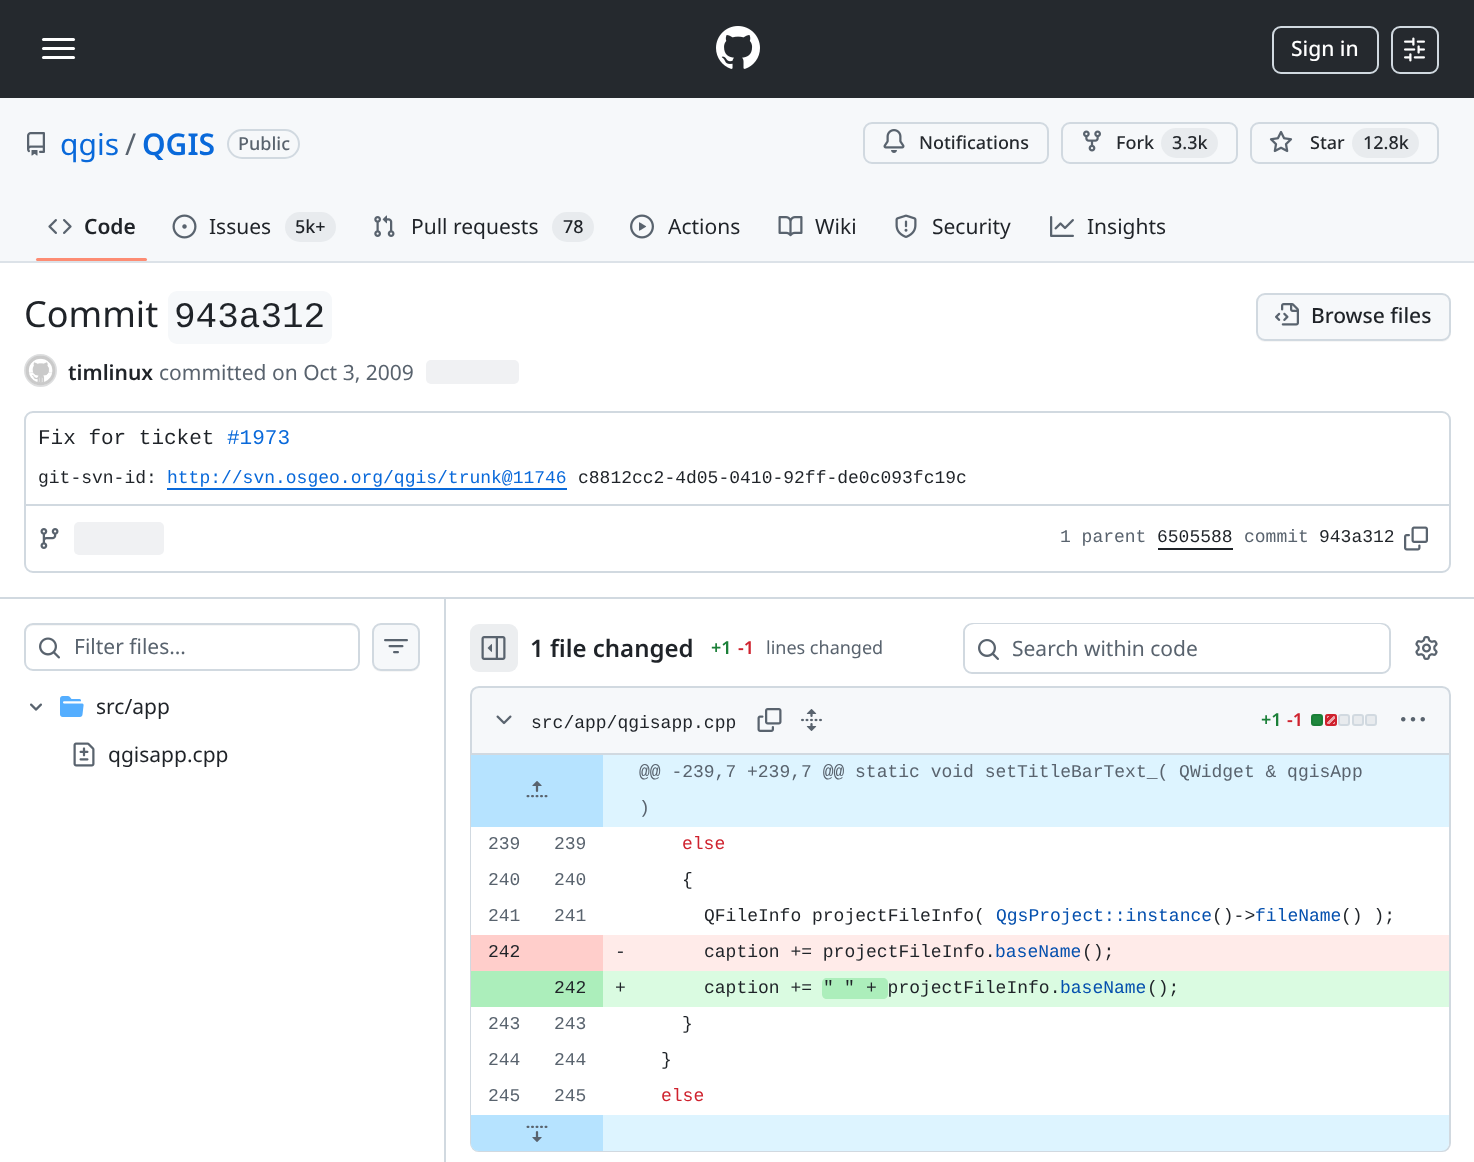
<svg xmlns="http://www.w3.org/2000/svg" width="1474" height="1162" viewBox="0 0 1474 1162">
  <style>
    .t1 { font: 500 21px Noto Sans; fill: #fff; }
    .t2 { font: 30px Noto Sans; fill: #0969da; }
    .t3 { font: 30px Noto Sans; fill: #59636e; }
    .t4 { font: 600 30px Noto Sans; fill: #0969da; }
    .t5 { font: 500 18px Noto Sans; fill: #59636e; }
    .t6 { font: 500 18px Noto Sans; fill: #25292e; }
    .t7 { font: 600 21px Noto Sans; fill: #1f2328; }
    .t8 { font: 21px Noto Sans; fill: #1f2328; }
    .t9 { font: 500 18px Noto Sans; fill: #1f2328; }
    .t10 { font: 36px Noto Sans; fill: #1f2328; }
    .t11 { font: 36px Liberation Mono; fill: #1f2328; }
    .t12 { font: 500 21px Noto Sans; fill: #1f2328; }
    .t13 { font: 21px Noto Sans; fill: #59636e; }
    .t14 { font: 21px Liberation Mono; fill: #1f2328; }
    .t15 { font: 21px Liberation Mono; fill: #0969da; }
    .t16 { font: 18px Liberation Mono; fill: #1f2328; }
    .t17 { font: 18px Liberation Mono; fill: #0969da; }
    .t18 { font: 18px Liberation Mono; fill: #59636e; }
    .t19 { font: 600 24px Noto Sans; fill: #1f2328; }
    .t20 { font: 600 18px Noto Sans; fill: #1a7f37; }
    .t21 { font: 600 18px Noto Sans; fill: #cf222e; }
    .t22 { font: 18px Noto Sans; fill: #59636e; }
    .t23 { font: 18px Liberation Mono; fill: #cf222e; }
    .t24 { font: 18px Liberation Mono; fill: #0550ae; }
  </style>
  <rect width="100%" height="100%" fill="#fff"/>
  <rect x="0" y="0" width="1474" height="98" fill="#25292e"/>
  <rect x="42" y="38" width="33" height="3" rx="1.5" fill="#fff"/>
  <rect x="42" y="47" width="33" height="3" rx="1.5" fill="#fff"/>
  <rect x="42" y="56" width="33" height="3" rx="1.5" fill="#fff"/>
  <image x="716" y="26" width="44" height="43" href="images/1.png"/>
  <rect x="1273" y="27" width="105" height="46" rx="8" fill="none" stroke="#d1d9e0" stroke-width="2"/>
  <text x="1291" y="56" class="t1">Sign in</text>
  <rect x="1392" y="27" width="46" height="46" rx="8" fill="none" stroke="#d1d9e0" stroke-width="2"/>
  <image x="1404" y="37" width="21" height="25" href="images/2.png"/>
  <rect x="0" y="98" width="1474" height="163" fill="#f6f8fa"/>
  <image x="27" y="132" width="18" height="24" href="images/3.png"/>
  <text x="60" y="155" class="t2">qgis</text>
  <text x="125" y="155" class="t3">/</text>
  <text x="142" y="155" class="t4">QGIS</text>
  <rect x="228" y="130" width="71" height="28" rx="14" fill="none" stroke="#d1d9e0" stroke-width="2"/>
  <text x="238" y="150" class="t5">Public</text>
  <rect x="864" y="123" width="184" height="40" rx="8" fill="none" stroke="#d1d9e0" stroke-width="2"/>
  <image x="883" y="129" width="22" height="24" href="images/4.png"/>
  <text x="919" y="149" class="t6">Notifications</text>
  <rect x="1062" y="123" width="175" height="40" rx="8" fill="none" stroke="#d1d9e0" stroke-width="2"/>
  <image x="1083" y="130" width="18" height="22" href="images/5.png"/>
  <text x="1116" y="149" class="t6">Fork</text>
  <rect x="1161" y="128" width="57" height="30" rx="15" fill="#e8ebee"/>
  <text x="1172" y="149" class="t6">3.3k</text>
  <rect x="1251" y="123" width="187" height="40" rx="8" fill="none" stroke="#d1d9e0" stroke-width="2"/>
  <image x="1269" y="130" width="24" height="23" href="images/6.png"/>
  <text x="1310" y="149" class="t6">Star</text>
  <rect x="1352" y="128" width="67" height="30" rx="15" fill="#e8ebee"/>
  <text x="1363" y="149" class="t6">12.8k</text>
  <rect x="0" y="261" width="1474" height="2" fill="#dce2e8"/>
  <image x="48" y="219" width="24" height="15" href="images/7.png"/>
  <text x="84" y="234" class="t7">Code</text>
  <rect x="36" y="258" width="111" height="3" rx="1.5" fill="#fd8c73"/>
  <image x="172" y="214" width="25" height="25" href="images/8.png"/>
  <text x="209" y="234" class="t8">Issues</text>
  <rect x="285" y="212" width="51" height="30" rx="15" fill="#e8ebee"/>
  <text x="295" y="233" class="t9">5k+</text>
  <image x="374" y="215" width="21" height="22" href="images/9.png"/>
  <text x="411" y="234" class="t8">Pull requests</text>
  <rect x="552" y="212" width="42" height="30" rx="15" fill="#e8ebee"/>
  <text x="563" y="233" class="t9">78</text>
  <image x="630" y="214" width="24" height="25" href="images/10.png"/>
  <text x="668" y="234" class="t8">Actions</text>
  <image x="778" y="216" width="25" height="21" href="images/11.png"/>
  <text x="815" y="234" class="t8">Wiki</text>
  <image x="895" y="214" width="22" height="24" href="images/12.png"/>
  <text x="932" y="234" class="t8">Security</text>
  <image x="1050" y="216" width="24" height="21" href="images/13.png"/>
  <text x="1087" y="234" class="t8">Insights</text>
  <text x="24" y="327" class="t10">Commit</text>
  <rect x="168" y="291" width="164" height="53" rx="9" fill="#f6f8fa"/>
  <text x="174" y="327" class="t11">943a312</text>
  <path d="M1256 335C1257 339 1261 342 1265 342H1442C1447 342 1451 338 1451 333V303L1450 299V332C1450 336 1446 340 1442 340H1264C1261 340 1258 338 1256 335Z" fill="#f6f6f6"/>
  <rect x="1257" y="294" width="193" height="46" rx="8" fill="#f6f8fa" stroke="#d1d9e0" stroke-width="2"/>
  <image x="1275" y="303" width="24" height="23" href="images/14.png"/>
  <text x="1311" y="323" class="t12">Browse files</text>
  <circle cx="40.5" cy="370.5" r="15.5" fill="none" stroke="#dddedf" stroke-width="2"/>
  <image x="25" y="355" width="31" height="31" href="images/15.png"/>
  <text x="68" y="380" class="t7">timlinux</text>
  <text x="159" y="380" class="t13">committed</text>
  <text x="272" y="380" class="t13">on Oct 3, 2009</text>
  <rect x="426" y="360" width="93" height="24" rx="5" fill="#f0f1f3"/>
  <rect x="25" y="412" width="1425" height="160" rx="8" fill="none" stroke="#d1d9e0" stroke-width="2"/>
  <rect x="26" y="504" width="1423" height="2" fill="#d1d9e0"/>
  <text x="38" y="444" class="t14">Fix for ticket</text>
  <text x="227" y="444" class="t15">#1973</text>
  <text x="38" y="483" class="t16">git-svn-id:</text>
  <text x="167" y="483" class="t17">http://svn.osgeo.org/qgis/trunk@11746</text>
  <rect x="167" y="488" width="400" height="2" fill="#0969da"/>
  <text x="578" y="483" class="t16">c8812cc2-4d05-0410-92ff-de0c093fc19c</text>
  <image x="40" y="528" width="19" height="21" href="images/16.png"/>
  <rect x="74" y="522" width="90" height="33" rx="5" fill="#f0f1f3"/>
  <text x="1060" y="542" class="t18">1 parent</text>
  <text x="1157" y="542" class="t16">6505588</text>
  <rect x="1158" y="548" width="75" height="2" fill="#1f2328"/>
  <text x="1244" y="542" class="t18">commit</text>
  <text x="1319" y="542" class="t16">943a312</text>
  <image x="1404" y="526" width="24" height="25" href="images/17.png"/>
  <rect x="0" y="597" width="1474" height="2" fill="#d1d9e0"/>
  <path d="M33 626H351C355 626 358 629 358 633V663V666C358 664 359 663 359 661V632C359 628 355 624 351 624H34C30 624 26 628 26 632V633C26 629 29 626 33 626Z" fill="#f6f6f6"/>
  <rect x="25" y="624" width="334" height="46" rx="8" fill="none" stroke="#d1d9e0" stroke-width="2"/>
  <image x="39" y="637" width="21" height="22" href="images/18.png"/>
  <text x="74" y="654" class="t13">Filter files…</text>
  <path d="M372 662C372 671 378 672 386 672H406C414 672 420 671 420 662C420 666 416 670 411 670H381C376 670 372 666 372 662Z" fill="#f6f6f6"/>
  <rect x="373" y="624" width="46" height="46" rx="8" fill="#f6f8fa" stroke="#d1d9e0" stroke-width="2"/>
  <image x="384" y="639" width="24" height="15" href="images/19.png"/>
  <image x="30" y="703" width="12" height="8" href="images/20.png"/>
  <image x="60" y="696" width="24" height="21" href="images/21.png"/>
  <text x="96" y="714" class="t8">src/app</text>
  <image x="73" y="742" width="22" height="25" href="images/22.png"/>
  <text x="108" y="762" class="t8">qgisapp.cpp</text>
  <rect x="444" y="599" width="2" height="563" fill="#d1d9e0"/>
  <rect x="470" y="624" width="48" height="48" rx="9" fill="#eceef0"/>
  <image x="481" y="636" width="25" height="24" href="images/23.png"/>
  <text x="530" y="657" class="t19">1 file changed</text>
  <text x="711" y="654" class="t20">+1</text>
  <text x="738" y="654" class="t21">-1</text>
  <text x="766" y="654" class="t22">lines changed</text>
  <rect x="964" y="624" width="426" height="49" rx="8" fill="none" stroke="#d1d9e0" stroke-width="2"/>
  <rect x="965" y="624" width="424" height="48" rx="9" fill="#fff"/>
  <image x="978" y="639" width="21" height="21" href="images/24.png"/>
  <text x="1012" y="656" class="t13">Search within code</text>
  <image x="1415" y="636" width="23" height="24" href="images/25.png"/>
  <path d="M471 754H1450V1143C1450 1147.5 1446.5 1151 1442 1151H479C474.5 1151 471 1147.5 471 1143Z" fill="none" stroke="#d1d9e0" stroke-width="2"/>
  <path d="M479 687H1442C1446.5 687 1450 690.5 1450 695V754H471V695C471 690.5 474.5 687 479 687Z" fill="#f6f8fa" stroke="#d1d9e0" stroke-width="2"/>
  <image x="496" y="715" width="16" height="10" href="images/26.png"/>
  <text x="531" y="728" class="t16">src/app/qgisapp.cpp</text>
  <image x="757" y="708" width="25" height="24" href="images/27.png"/>
  <image x="801" y="709" width="21" height="22" href="images/28.png"/>
  <text x="1261" y="726" class="t20">+1</text>
  <text x="1287" y="726" class="t21">-1</text>
  <rect x="1312" y="715" width="10" height="10" rx="2" fill="#1f883d" stroke="#1a7f37" stroke-width="2"/>
  <rect x="1325" y="714" width="12" height="12" rx="3" fill="#cf222e"/>
  <image x="1325" y="714" width="12" height="12" href="images/29.png"/>
  <rect x="1326" y="715" width="10" height="10" rx="2" fill="none" stroke="#cf222e" stroke-width="2"/>
  <rect x="1339" y="715" width="10" height="10" rx="2" fill="#e8ebee" stroke="#d1d9e0" stroke-width="2"/>
  <rect x="1353" y="715" width="10" height="10" rx="2" fill="#e8ebee" stroke="#d1d9e0" stroke-width="2"/>
  <rect x="1366" y="715" width="10" height="10" rx="2" fill="#e8ebee" stroke="#d1d9e0" stroke-width="2"/>
  <image x="1401" y="717" width="24" height="5" href="images/30.png"/>
  <rect x="603" y="755" width="846" height="72" fill="#ddf4ff"/>
  <rect x="471" y="755" width="132" height="72" fill="#b6e3ff"/>
  <image x="526" y="781" width="22" height="17" href="images/31.png"/>
  <text x="639" y="777" class="t18">@@ -239,7 +239,7 @@ static void setTitleBarText_( QWidget &amp; qgisApp</text>
  <text x="639" y="813" class="t18">)</text>
  <rect x="471" y="827" width="1" height="108" fill="#fff"/>
  <text x="488" y="849" class="t18">239</text>
  <text x="554" y="849" class="t18">239</text>
  <text x="682" y="849" class="t23">else</text>
  <text x="488" y="885" class="t18">240</text>
  <text x="554" y="885" class="t18">240</text>
  <text x="682" y="885" class="t16">{</text>
  <text x="488" y="921" class="t18">241</text>
  <text x="554" y="921" class="t18">241</text>
  <text x="704" y="921" class="t16">QFileInfo projectFileInfo(</text>
  <text x="996" y="921" class="t24">QgsProject::instance</text>
  <text x="1212" y="921" class="t16">()-&gt;</text>
  <text x="1255" y="921" class="t24">fileName</text>
  <text x="1341" y="921" class="t16">() );</text>
  <rect x="471" y="935" width="132" height="36" fill="#ffcecb"/>
  <text x="488" y="957" class="t16">242</text>
  <rect x="603" y="935" width="846" height="36" fill="#ffebe9"/>
  <text x="615" y="957" class="t16">-</text>
  <text x="704" y="957" class="t16">caption += projectFileInfo.</text>
  <text x="995" y="957" class="t24">baseName</text>
  <text x="1082" y="957" class="t16">();</text>
  <rect x="471" y="971" width="132" height="36" fill="#aceebb"/>
  <rect x="603" y="971" width="846" height="36" fill="#dafbe1"/>
  <text x="615" y="993" class="t16">+</text>
  <text x="704" y="993" class="t16">caption +=</text>
  <path d="M827 978H834V999H827C824 999 822 997 822 994V983C822 980 824 978 827 978Z" fill="#aceebb"/>
  <text x="823" y="993" class="t16">"</text>
  <rect x="834" y="978" width="21" height="21" fill="#aceebb"/>
  <text x="844" y="993" class="t16">"</text>
  <path d="M855 978H883C886 978 888 980 888 983V994C888 997 886 999 883 999H855Z" fill="#aceebb"/>
  <text x="866" y="993" class="t16">+ projectFileInfo.</text>
  <text x="1060" y="993" class="t24">baseName</text>
  <text x="1147" y="993" class="t16">();</text>
  <text x="554" y="993" class="t16">242</text>
  <rect x="471" y="1007" width="1" height="108" fill="#fff"/>
  <text x="488" y="1029" class="t18">243</text>
  <text x="554" y="1029" class="t18">243</text>
  <text x="682" y="1029" class="t16">}</text>
  <text x="488" y="1065" class="t18">244</text>
  <text x="554" y="1065" class="t18">244</text>
  <text x="661" y="1065" class="t16">}</text>
  <text x="488" y="1101" class="t18">245</text>
  <text x="554" y="1101" class="t18">245</text>
  <text x="661" y="1101" class="t23">else</text>
  <path d="M471 1115H1449V1143C1449 1147.5 1445.5 1151 1441 1151H479C474.5 1151 471 1147.5 471 1143Z" fill="#ddf4ff"/>
  <path d="M471 1115H603V1151H479C474.5 1151 471 1147.5 471 1143Z" fill="#b6e3ff"/>
  <image x="526" y="1125" width="22" height="17" href="images/32.png"/>
</svg>
